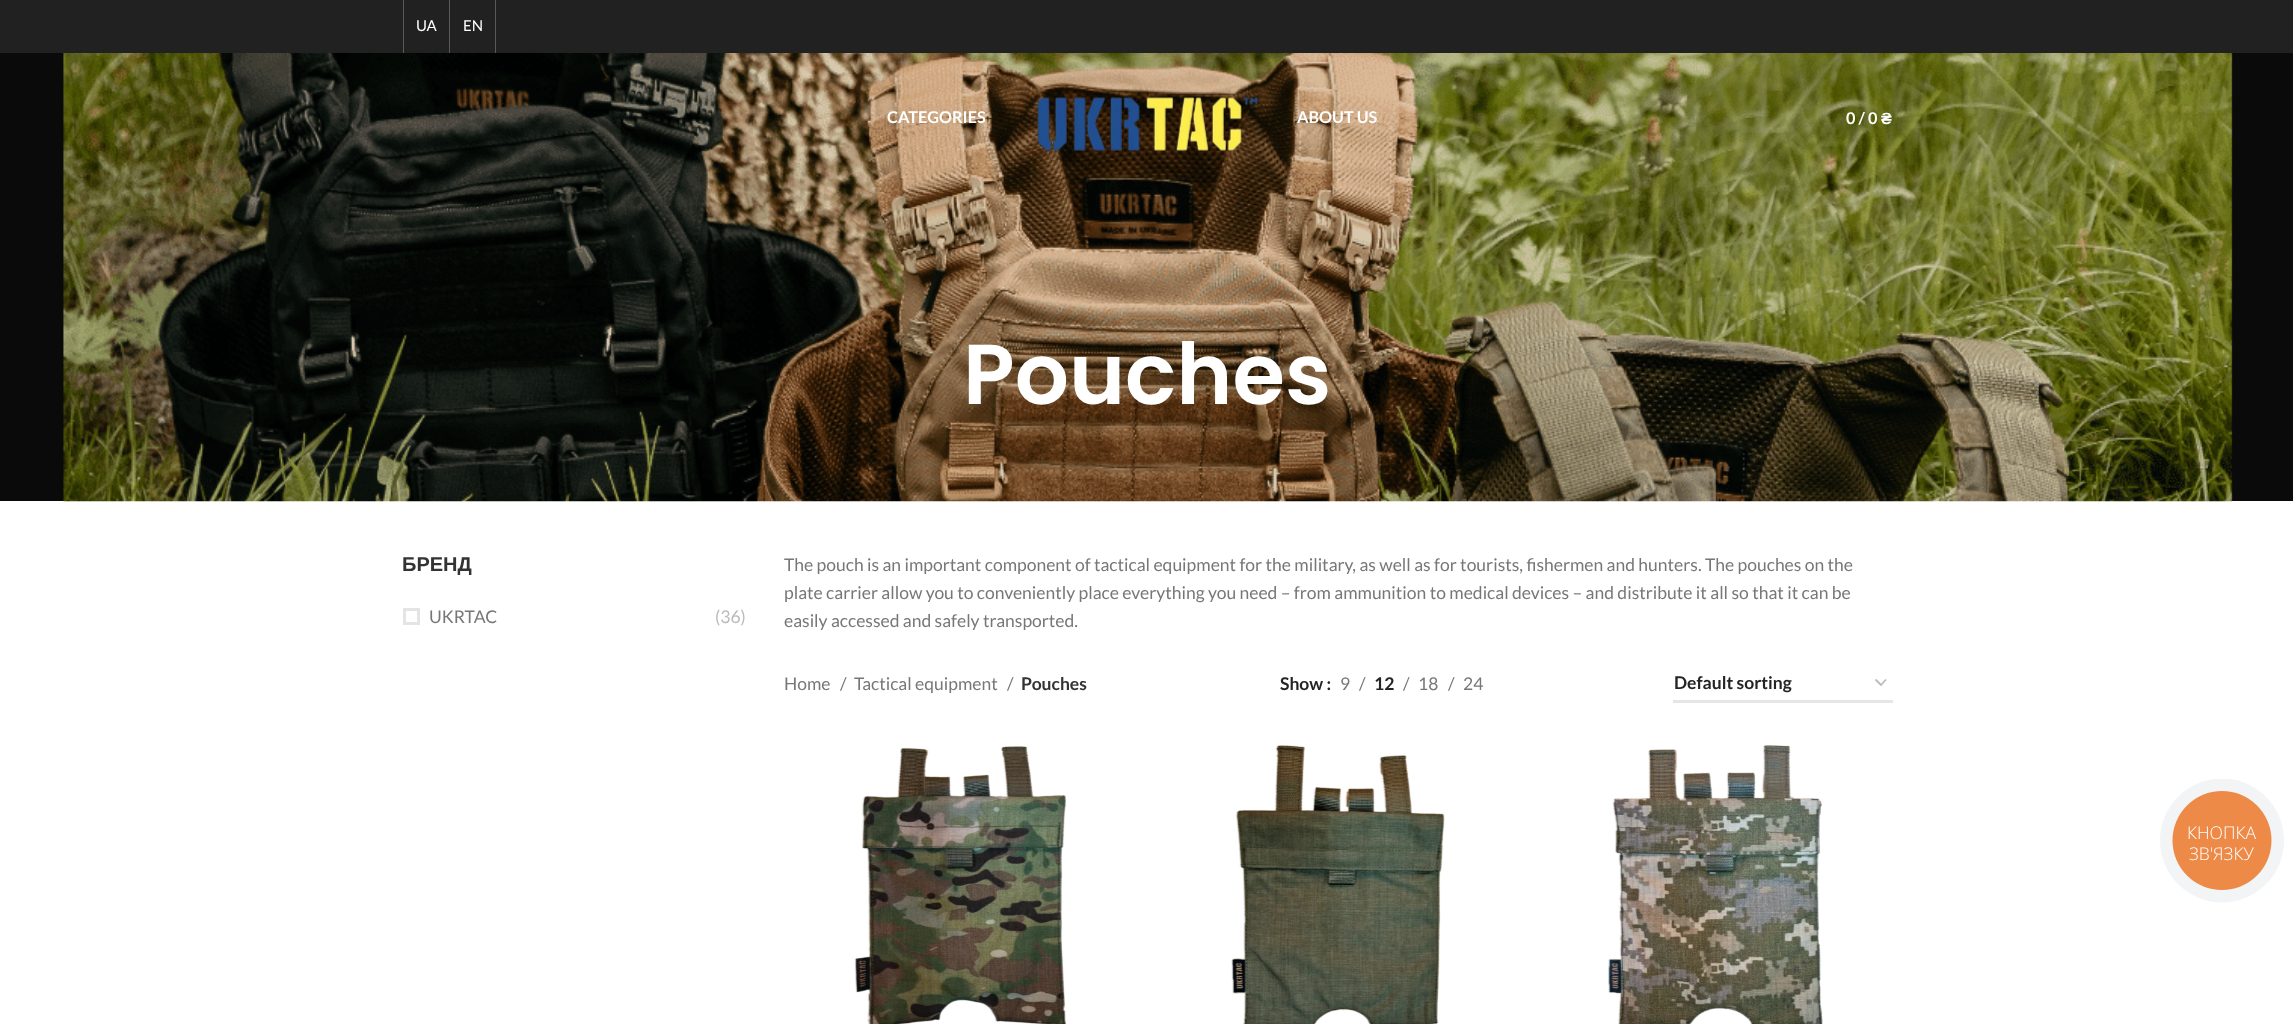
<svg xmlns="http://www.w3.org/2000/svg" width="2293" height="1024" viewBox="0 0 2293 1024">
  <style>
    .t1 { font: 15px Lato; fill: #fff; }
    .t2 { font: bold 16.25px Lato; fill: #fff; }
    .t3 { font: bold 16.25px Liberation Sans; fill: #fff; }
    .t4 { font: 600 85px Poppins; fill: #fff; }
    .t5 { font: bold 20px Liberation Sans; fill: #333; }
    .t6 { font: 17.5px Lato; fill: #777; }
    .t7 { font: 17.5px Lato; fill: #bbb; }
    .t8 { font: bold 17.5px Lato; fill: #333; }
    .t9 { font: bold 17.5px Lato; fill: #242424; }
    .t10 { font: 300 17.5px Open Sans; fill: #fff; }
  </style>
  <defs>
    <clipPath id="clip1"><rect x="2160" y="779" width="124" height="124"/></clipPath>
  </defs>
  <rect width="100%" height="100%" fill="#fff"/>
  <rect x="0" y="0" width="2293" height="53" fill="#212121"/>
  <rect x="403" y="0" width="1" height="53" fill="#595959"/>
  <text x="416" y="31" class="t1">UA</text>
  <rect x="449" y="0" width="1" height="53" fill="#595959"/>
  <text x="463" y="31" class="t1">EN</text>
  <rect x="495" y="0" width="1" height="53" fill="#595959"/>
  <rect x="0" y="53" width="2293" height="448" fill="#0a0a0a"/>
  <image x="63" y="53" width="2170" height="449" href="images/2.png"/>
  <text x="887" y="123" class="t2">CATEGORIES</text>
  <image x="1037" y="96" width="222" height="56" href="images/1.png"/>
  <text x="1297" y="123" class="t2">ABOUT US</text>
  <text x="1846" y="124" class="t2">0 / 0</text>
  <text x="1881" y="124" class="t3">₴</text>
  <text x="963" y="404" class="t4">Pouches</text>
  <text x="402" y="571" class="t5">БРЕНД</text>
  <rect x="404.5" y="609.5" width="14" height="14" fill="none" stroke="#e4e4e4" stroke-width="3"/>
  <text x="429" y="623" class="t6">UKRTAC</text>
  <text x="715" y="623" class="t7">(36)</text>
  <text x="784" y="571" class="t6">The pouch is an important component of tactical equipment for the military, as well as for tourists, fishermen and hunters. The pouches on the</text>
  <text x="784" y="599" class="t6">plate carrier allow you to conveniently place everything you need – from ammunition to medical devices – and distribute it all so that it can be</text>
  <text x="784" y="627" class="t6">easily accessed and safely transported.</text>
  <text x="784" y="690" class="t6">Home</text>
  <text x="840" y="690" class="t6">/</text>
  <text x="854" y="690" class="t6">Tactical equipment</text>
  <text x="1007" y="690" class="t6">/</text>
  <text x="1021" y="690" class="t8">Pouches</text>
  <text x="1280" y="690" class="t9">Show :</text>
  <text x="1340" y="690" class="t6">9</text>
  <text x="1359" y="690" class="t6">/</text>
  <text x="1374" y="690" class="t9">12</text>
  <text x="1403" y="690" class="t6">/</text>
  <text x="1418" y="690" class="t6">18</text>
  <text x="1448" y="690" class="t6">/</text>
  <text x="1463" y="690" class="t6">24</text>
  <path d="M1875.5 679.5L1881 685L1886 679.5" fill="none" stroke="#bbb" stroke-width="1.8"/>
  <rect x="1673" y="700" width="220" height="3" fill="#e6e6e6"/>
  <text x="1674" y="689" class="t9">Default sorting</text>
  <image x="854" y="746" width="213" height="278" href="images/3.png"/>
  <image x="1231" y="745" width="214" height="279" href="images/4.png"/>
  <image x="1608" y="745" width="215" height="279" href="images/5.png"/>
  <g clip-path="url(#clip1)">
    <circle cx="2222" cy="840.5" r="62" fill="#f2f4f5"/>
  </g>
  <circle cx="2222" cy="840.5" r="49.5" fill="#ed8a47"/>
  <text x="2187" y="839" class="t10">КНОПКА</text>
  <text x="2189" y="860" class="t10">ЗВ'ЯЗКУ</text>
</svg>
